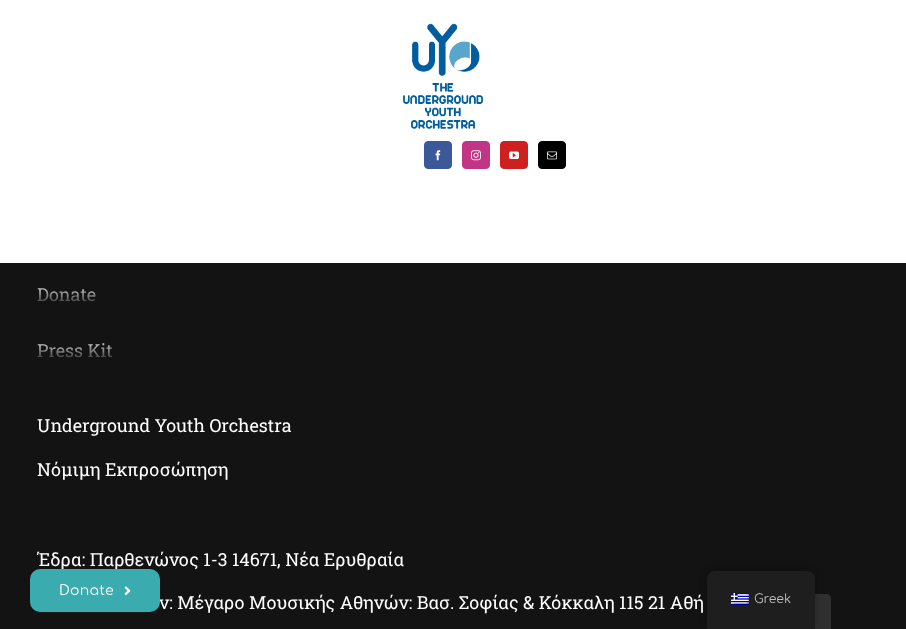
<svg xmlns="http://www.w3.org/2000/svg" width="906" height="629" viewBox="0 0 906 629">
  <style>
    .t1 { font: 18px Roboto Slab; fill: url(#g1); }
    .t2 { font: 18px Roboto Slab; fill: url(#g2); }
    .t3 { font: 18px Roboto Slab; fill: #fff; }
    .t4 { font: 14px Comfortaa; letter-spacing: 0.25px; fill: #fff; }
    .t5 { font: 12.5px Comfortaa; fill: #bdbdbd; }
  </style>
  <defs>
    <linearGradient id="g1" gradientUnits="userSpaceOnUse" x1="66" y1="282" x2="66" y2="308"><stop offset="0" stop-color="#f7f7f7"/><stop offset="1" stop-color="#131313"/></linearGradient>
    <linearGradient id="g2" gradientUnits="userSpaceOnUse" x1="75" y1="338" x2="75" y2="363"><stop offset="0" stop-color="#f7f7f7"/><stop offset="1" stop-color="#131313"/></linearGradient>
  </defs>
  <rect width="100%" height="100%" fill="#131313"/>
  <rect x="0" y="0" width="906" height="263" fill="#fff"/>
  <image x="403" y="23" width="80" height="106" href="images/1.png"/>
  <rect x="424.5" y="141.5" width="27" height="27" rx="3.5" fill="#3b5998" stroke="#3b5998"/>
  <image x="435" y="150" width="6" height="11" href="images/2.png"/>
  <rect x="462.5" y="141.5" width="27" height="27" rx="3.5" fill="#c13584" stroke="#c13584"/>
  <image x="471" y="150" width="10" height="11" href="images/3.png"/>
  <rect x="500.5" y="141.5" width="27" height="27" rx="3.5" fill="#cd201f" stroke="#cd201f"/>
  <image x="509" y="151" width="10" height="8" href="images/4.png"/>
  <rect x="538.5" y="141.5" width="27" height="27" rx="3.5" fill="#000" stroke="#000"/>
  <image x="547" y="151" width="10" height="9" href="images/5.png"/>
  <text x="37" y="301" class="t1">Donate</text>
  <text x="37" y="357" class="t2">Press Kit</text>
  <text x="37" y="432" class="t3">Underground Youth Orchestra</text>
  <text x="37" y="476" class="t3">Νόμιμη Εκπροσώπηση</text>
  <text x="37" y="566" class="t3">Έδρα: Παρθενώνος 1-3 14671, Νέα Ερυθραία</text>
  <text x="159" y="609" class="t3">ν: Μέγαρο Μουσικής Αθηνών: Βασ. Σοφίας &amp; Κόκκαλη 115 21 Αθή</text>
  <rect x="30" y="569" width="130" height="43" rx="10" fill="#3aacb0"/>
  <text x="59" y="595" class="t4">Donate</text>
  <image x="124" y="586" width="7" height="10" href="images/6.png"/>
  <path d="M787 594H827C829 594 831 596 831 598V629H783V598C783 596 785 594 787 594Z" fill="#303030"/>
  <rect x="707" y="571" width="108" height="58" rx="8" fill="#00000040" filter="blur(4px)"/>
  <path d="M715 571H807C811.5 571 815 574.5 815 579V629H707V579C707 574.5 710.5 571 715 571Z" fill="#1e1e1e"/>
  <image x="731" y="593" width="18" height="12" href="images/7.png"/>
  <text x="754" y="603" class="t5">Greek</text>
</svg>
